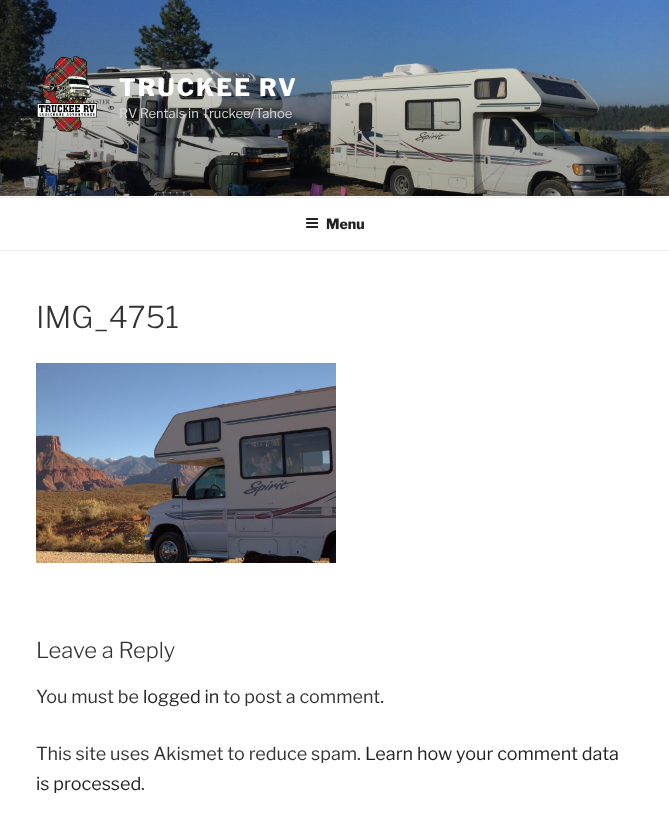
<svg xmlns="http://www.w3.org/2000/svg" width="669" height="813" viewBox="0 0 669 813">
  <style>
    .t1 { font: 800 24px Libre Franklin; letter-spacing: 2px; fill: #fff; }
    .t2 { font: 13px Libre Franklin; fill: #d8d8d9; }
    .t3 { font: 800 14px Libre Franklin; fill: #222; }
    .t4 { font: 300 30px Libre Franklin; fill: #333; }
    .t5 { font: 300 22px Libre Franklin; fill: #333; }
    .t6 { font: 18px Libre Franklin; fill: #333; }
    .t7 { font: 18px Libre Franklin; fill: #222; }
  </style>
  <rect width="100%" height="100%" fill="#fff"/>
  <rect x="0" y="196" width="669" height="1" fill="#fafafa"/>
  <image x="0" y="0" width="669" height="196" href="images/1.png"/>
  <image x="36" y="56" width="61" height="76" href="images/2.png"/>
  <text x="119" y="96" class="t1">TRUCKEE RV</text>
  <text x="119" y="118" class="t2">RV Rentals in Truckee/Tahoe</text>
  <rect x="0" y="197" width="669" height="1" fill="#eee"/>
  <rect x="0" y="250" width="669" height="1" fill="#eee"/>
  <image x="306" y="218" width="13" height="10" href="images/3.png"/>
  <text x="326" y="229" class="t3">Menu</text>
  <text x="36" y="328" class="t4">IMG_4751</text>
  <image x="36" y="363" width="300" height="200" href="images/4.png"/>
  <text x="36" y="658" class="t5">Leave a Reply</text>
  <text x="36" y="703" class="t6">You must be</text>
  <text x="143" y="703" class="t7">logged in</text>
  <text x="223" y="703" class="t6">to post a comment.</text>
  <text x="36" y="760" class="t6">This site uses Akismet to reduce spam.</text>
  <text x="365" y="760" class="t7">Learn how your comment data</text>
  <text x="36" y="790" class="t7">is processed</text>
  <text x="141" y="790" class="t6">.</text>
</svg>
